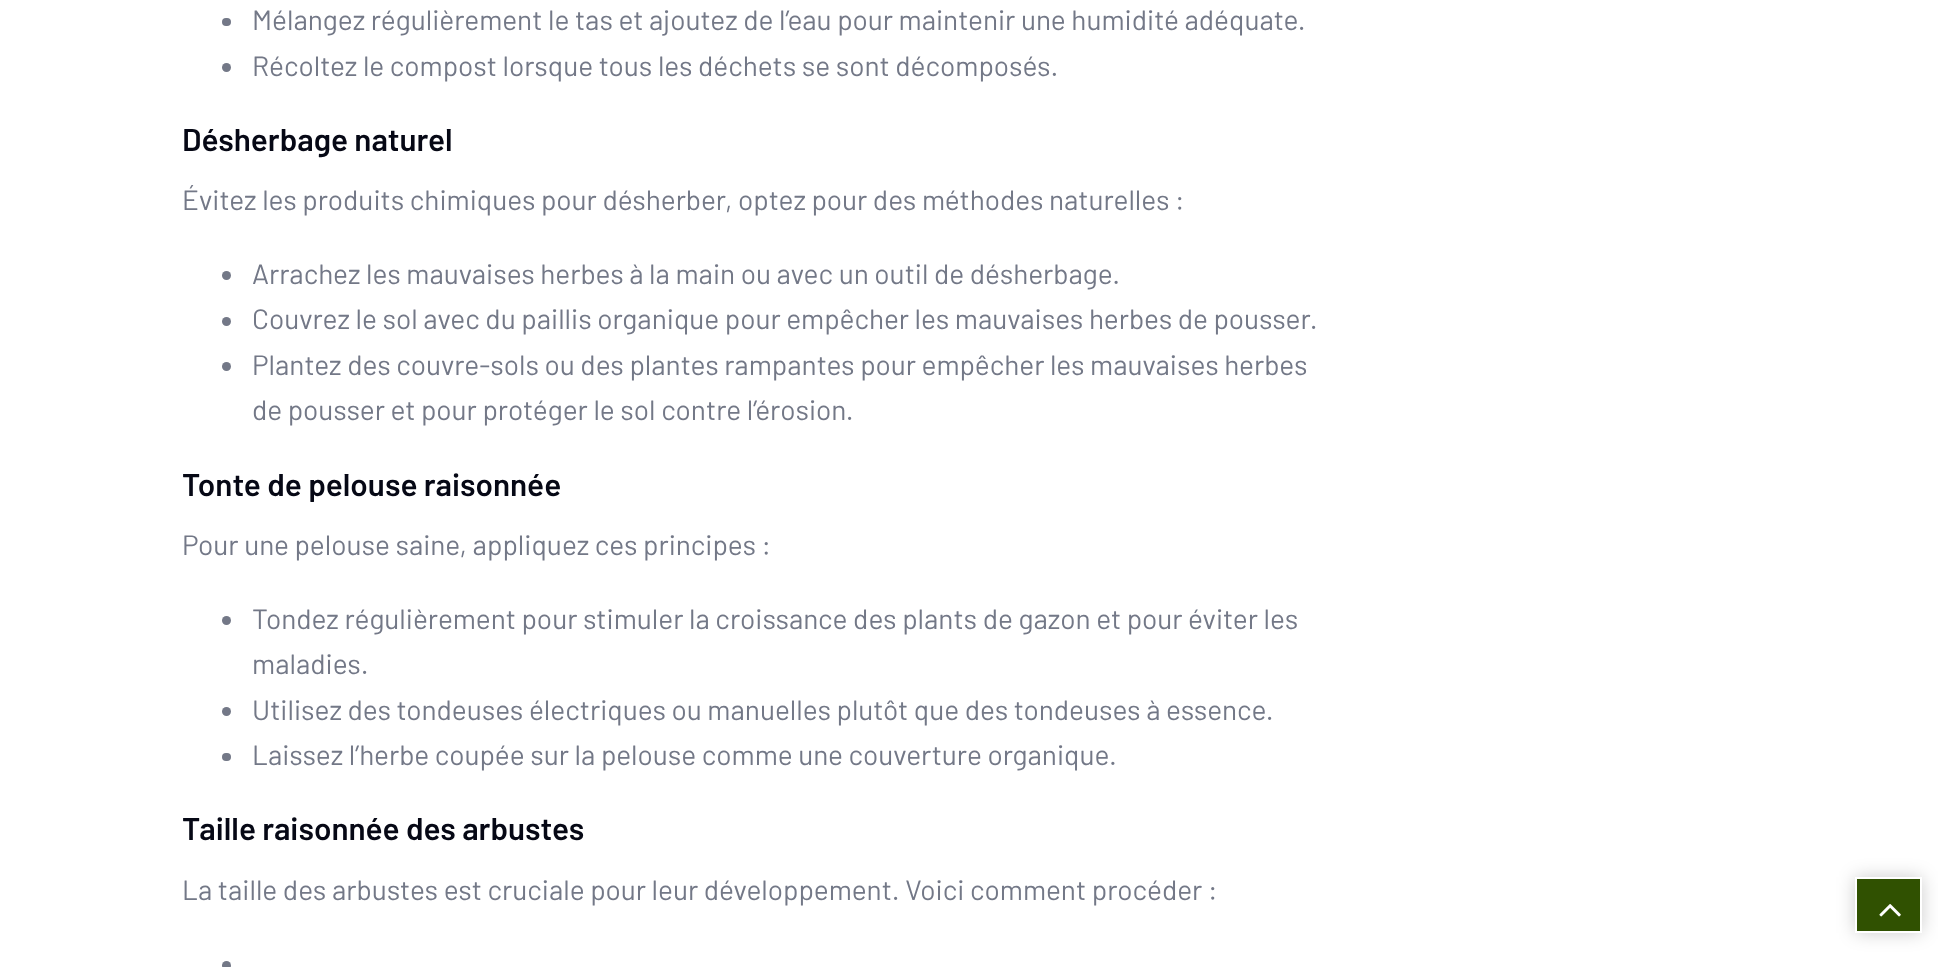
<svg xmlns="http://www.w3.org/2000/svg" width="1938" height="967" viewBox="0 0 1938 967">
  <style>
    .t1 { font: 28px Barlow; fill: #737887; }
    .t2 { font: 600 31.5px Barlow; fill: #060815; }
  </style>
  <defs>
    <clipPath id="clip1"><path d="M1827 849H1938V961H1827ZM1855 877H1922V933H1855Z" clip-rule="evenodd"/></clipPath>
  </defs>
  <rect width="100%" height="100%" fill="#fff"/>
  <rect x="222" y="18" width="9" height="8" rx="4" fill="#737887"/>
  <text x="252" y="30" class="t1">Mélangez régulièrement le tas et ajoutez de l’eau pour maintenir une humidité adéquate.</text>
  <circle cx="226.5" cy="67.5" r="4.5" fill="#737887"/>
  <text x="252" y="76" class="t1">Récoltez le compost lorsque tous les déchets se sont décomposés.</text>
  <text x="182" y="151" class="t2">Désherbage naturel</text>
  <text x="182" y="210" class="t1">Évitez les produits chimiques pour désherber, optez pour des méthodes naturelles :</text>
  <circle cx="226.5" cy="275.5" r="4.5" fill="#737887"/>
  <text x="252" y="284" class="t1">Arrachez les mauvaises herbes à la main ou avec un outil de désherbage.</text>
  <circle cx="226.5" cy="321.5" r="4.5" fill="#737887"/>
  <text x="252" y="329" class="t1">Couvrez le sol avec du paillis organique pour empêcher les mauvaises herbes de pousser.</text>
  <circle cx="226.5" cy="366.5" r="4.5" fill="#737887"/>
  <text x="252" y="375" class="t1">Plantez des couvre-sols ou des plantes rampantes pour empêcher les mauvaises herbes</text>
  <text x="252" y="420" class="t1">de pousser et pour protéger le sol contre l’érosion.</text>
  <text x="182" y="496" class="t2">Tonte de pelouse raisonnée</text>
  <text x="182" y="555" class="t1">Pour une pelouse saine, appliquez ces principes :</text>
  <circle cx="226.5" cy="620.5" r="4.5" fill="#737887"/>
  <text x="252" y="629" class="t1">Tondez régulièrement pour stimuler la croissance des plants de gazon et pour éviter les</text>
  <text x="252" y="674" class="t1">maladies.</text>
  <circle cx="226.5" cy="711.5" r="4.5" fill="#737887"/>
  <text x="252" y="720" class="t1">Utilisez des tondeuses électriques ou manuelles plutôt que des tondeuses à essence.</text>
  <rect x="222" y="753" width="9" height="8" rx="4" fill="#737887"/>
  <text x="252" y="765" class="t1">Laissez l’herbe coupée sur la pelouse comme une couverture organique.</text>
  <text x="182" y="840" class="t2">Taille raisonnée des arbustes</text>
  <text x="182" y="900" class="t1">La taille des arbustes est cruciale pour leur développement. Voici comment procéder :</text>
  <circle cx="226.5" cy="965.5" r="4.5" fill="#737887"/>
  <g clip-path="url(#clip1)">
    <rect x="1855" y="877" width="67" height="56" fill="#00000033" filter="blur(9px)"/>
  </g>
  <rect x="1857" y="879" width="63" height="52" fill="#305101"/>
  <image x="1879" y="904" width="22" height="13" href="images/1.png"/>
</svg>
